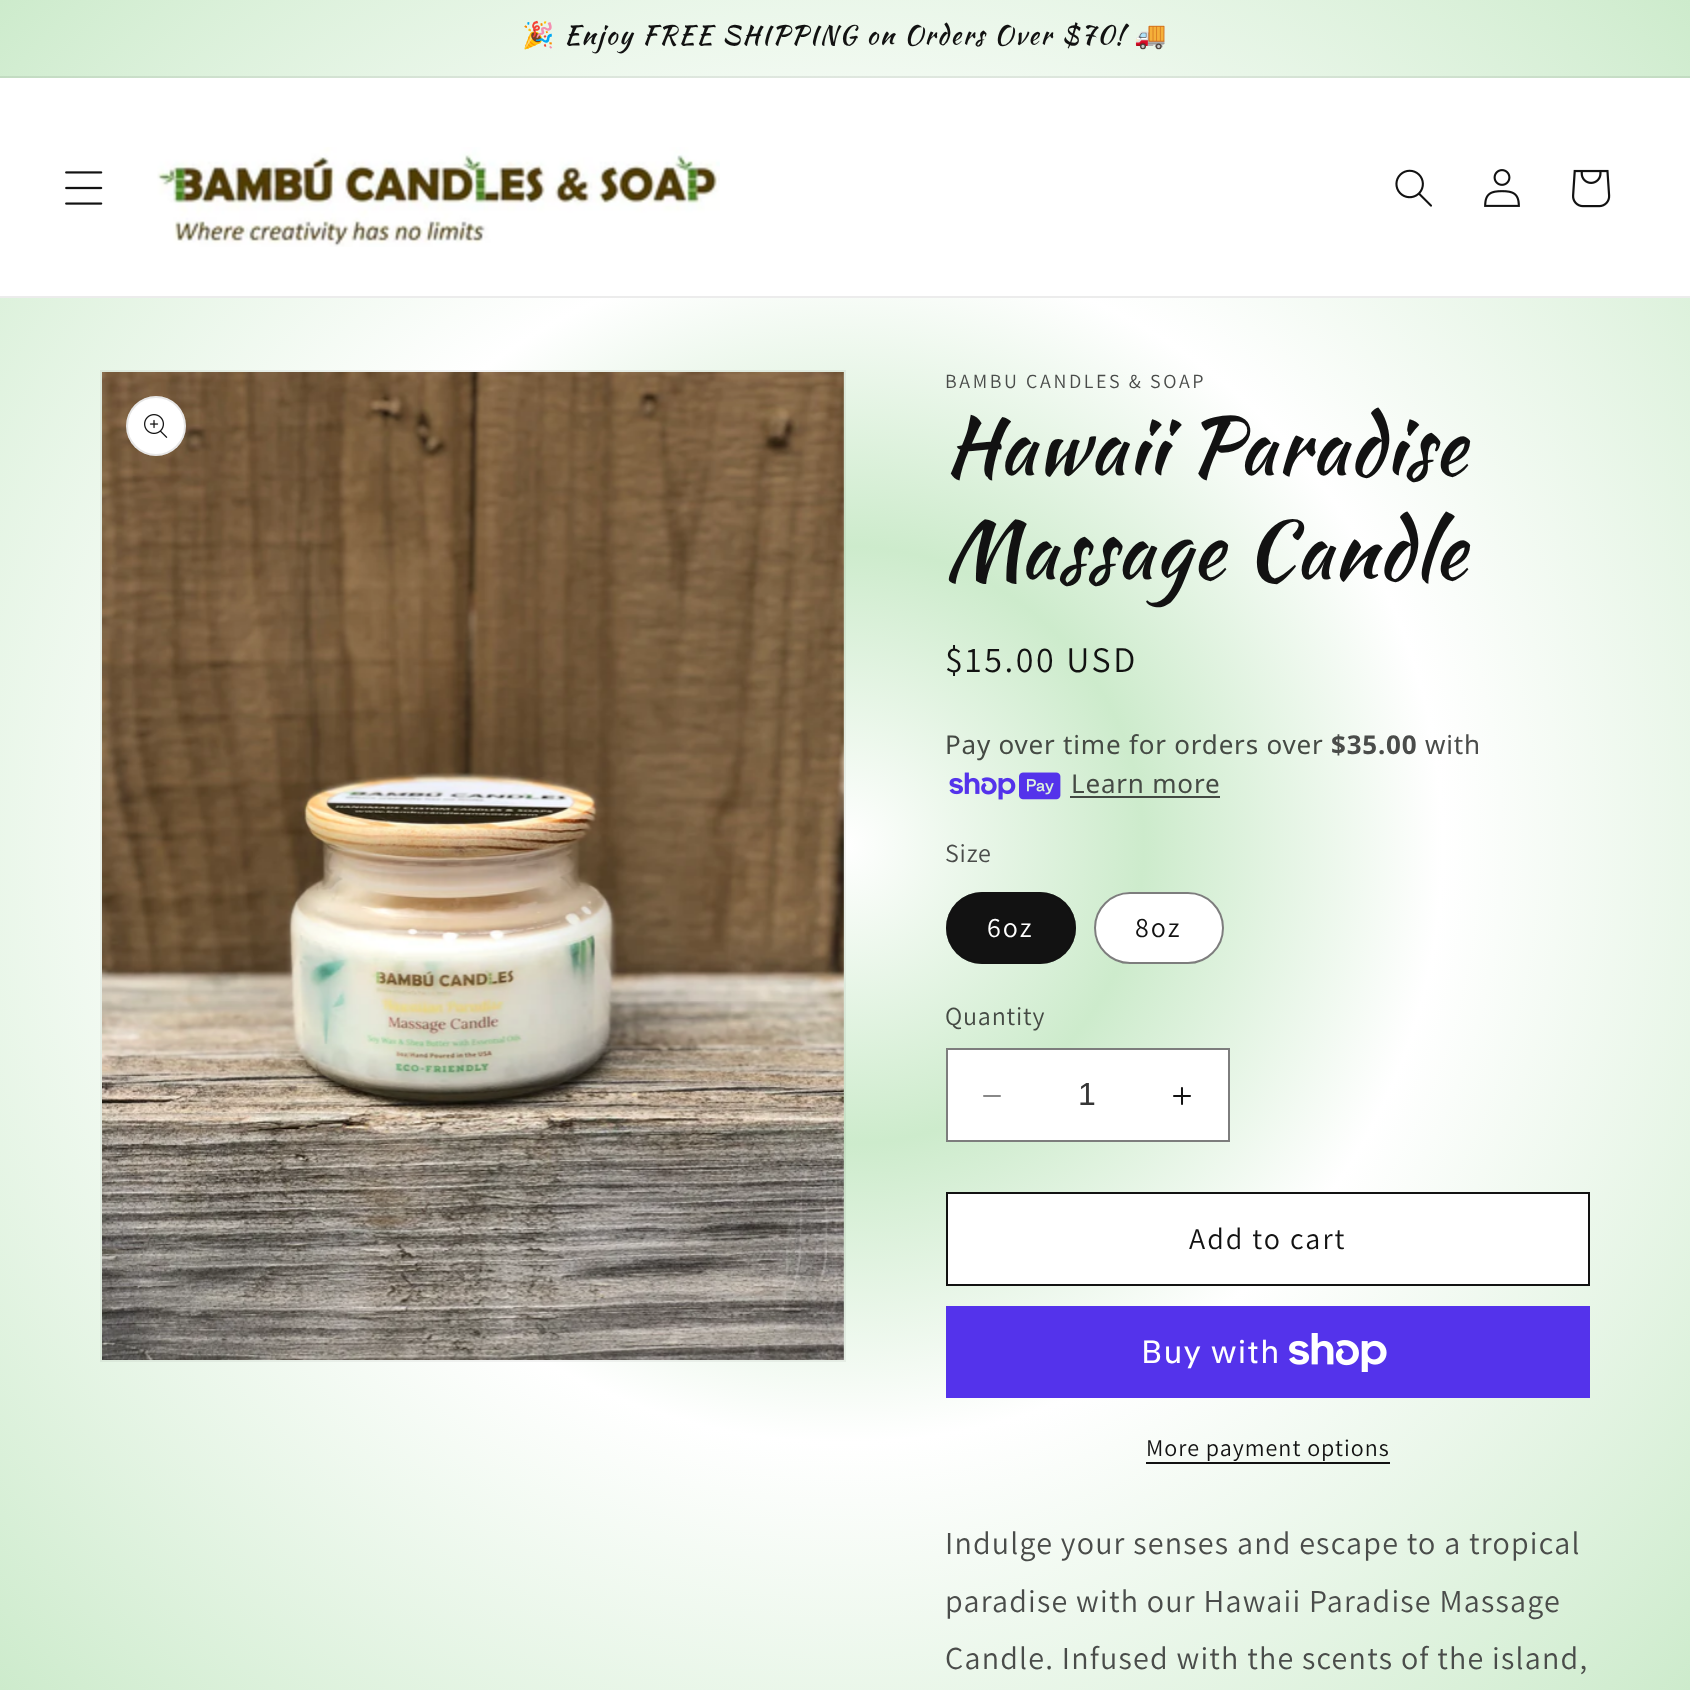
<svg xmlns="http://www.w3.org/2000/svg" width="1690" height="1690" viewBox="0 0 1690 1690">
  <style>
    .t1 { font: 26px Noto Color Emoji; letter-spacing: 2px; fill: #121212; }
    .t2 { font: 26px Kaushan Script; letter-spacing: 2px; fill: #121212; }
    .t3 { font: 20px Assistant; letter-spacing: 2.6px; fill: #4a4c4a; }
    .t4 { font: 80px Kaushan Script; letter-spacing: 1.2px; fill: #121212; }
    .t5 { font: 36px Assistant; letter-spacing: 2.6px; fill: #121212; }
    .t6 { font: 26px Noto Sans; letter-spacing: 0.8px; fill: #454a44; }
    .t7 { font: bold 26px Noto Sans; letter-spacing: 0.8px; fill: #4a4c4a; }
    .t8 { font: 26px Noto Sans; letter-spacing: 0.8px; fill: #4a4c4a; }
    .t9 { font: 26px Assistant; letter-spacing: 0.8px; fill: #4a4c4a; }
    .t10 { font: 28px Assistant; letter-spacing: 2px; fill: #fff; }
    .t11 { font: 28px Assistant; letter-spacing: 2px; fill: #121212; }
    .t12 { font: 26px Assistant; letter-spacing: 0.8px; fill: #454a44; }
    .t13 { font: 32px Liberation Sans; fill: #363636; }
    .t14 { font: 30px Assistant; letter-spacing: 2px; fill: #121212; }
    .t15 { font: 32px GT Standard; letter-spacing: 1.2px; fill: #fff; }
    .t16 { font: 24px Assistant; letter-spacing: 1px; fill: #121212; }
    .t17 { font: 32px Assistant; letter-spacing: 1.2px; fill: #4a4c4a; }
  </style>
  <defs>
    <radialGradient id="g1" gradientUnits="userSpaceOnUse" cx="845" cy="845" r="1195"><stop offset="0" stop-color="#fff"/><stop offset="0.25" stop-color="#cdebcc"/><stop offset="0.5" stop-color="#fff"/><stop offset="1" stop-color="#cdebcc"/><stop offset="1" stop-color="#ff8181"/></radialGradient>
    <radialGradient id="g2" gradientUnits="userSpaceOnUse" cx="845" cy="845" r="1195"><stop offset="0" stop-color="#4d4d4d"/><stop offset="0.25" stop-color="#414841"/><stop offset="0.5" stop-color="#4d4d4d"/><stop offset="1" stop-color="#414841"/><stop offset="1" stop-color="#4d2e2e"/></radialGradient>
    <radialGradient id="g3" gradientUnits="userSpaceOnUse" cx="845" cy="845" r="1195"><stop offset="0" stop-color="#ececec"/><stop offset="0.25" stop-color="#bedabd"/><stop offset="0.5" stop-color="#ececec"/><stop offset="1" stop-color="#bedabd"/><stop offset="1" stop-color="#ec7878"/></radialGradient>
  </defs>
  <rect width="100%" height="100%" fill="#fff"/>
  <rect x="0" y="298" width="1690" height="1392" fill="url(#g1)"/>
  <rect x="1070" y="796" width="150" height="2" fill="url(#g2)"/>
  <rect x="0" y="0" width="1690" height="76" fill="url(#g1)"/>
  <rect x="0" y="76" width="1690" height="2" fill="url(#g3)"/>
  <text x="522" y="44" class="t1">🎉</text>
  <text x="564" y="44" class="t2">Enjoy FREE SHIPPING on Orders Over $70!</text>
  <text x="1134" y="44" class="t1">🚚</text>
  <rect x="0" y="296" width="1690" height="2" fill="#ececec"/>
  <image x="65" y="171" width="38" height="34" href="images/1.png"/>
  <image x="157" y="147" width="563" height="100" href="images/2.png"/>
  <image x="1395" y="169" width="37" height="38" href="images/3.png"/>
  <image x="1484" y="169" width="36" height="38" href="images/4.png"/>
  <image x="1572" y="169" width="39" height="39" href="images/5.png"/>
  <rect x="101" y="371" width="744" height="990" fill="none" stroke="#1212120d" stroke-width="2"/>
  <image x="102" y="372" width="742" height="988" href="images/6.png"/>
  <circle cx="156" cy="426" r="30" fill="#fff"/>
  <circle cx="156" cy="426" r="29" fill="none" stroke="#1212121a" stroke-width="2"/>
  <image x="144" y="414" width="24" height="24" href="images/7.png"/>
  <text x="945" y="388" class="t3">BAMBU CANDLES &amp; SOAP</text>
  <text x="945" y="474" class="t4">Hawaii Paradise</text>
  <text x="945" y="578" class="t4">Massage Candle</text>
  <text x="945" y="672" class="t5">$15.00 USD</text>
  <text x="945" y="754" class="t6">Pay over time for orders over</text>
  <text x="1331" y="754" class="t7">$35.00</text>
  <text x="1425" y="754" class="t8">with</text>
  <image x="949" y="772" width="112" height="28" href="images/8.png"/>
  <text x="1071" y="793" class="t6">Learn more</text>
  <text x="945" y="862" class="t9">Size</text>
  <rect x="946" y="892" width="130" height="72" rx="36" fill="#121212"/>
  <rect x="947" y="893" width="128" height="70" rx="35" fill="none" stroke="#1212128c" stroke-width="2"/>
  <text x="987" y="937" class="t10">6oz</text>
  <rect x="1094" y="892" width="130" height="72" rx="36" fill="#fff"/>
  <rect x="1095" y="893" width="128" height="70" rx="35" fill="none" stroke="#1212128c" stroke-width="2"/>
  <text x="1135" y="937" class="t11">8oz</text>
  <text x="945" y="1025" class="t12">Quantity</text>
  <rect x="948" y="1050" width="280" height="90" fill="#fff"/>
  <image x="983" y="1095" width="18" height="2" href="images/9.png"/>
  <image x="1173" y="1087" width="18" height="18" href="images/10.png"/>
  <rect x="947" y="1049" width="282" height="92" fill="none" stroke="#7d7d7d" stroke-width="2"/>
  <text x="1078" y="1105" class="t13">1</text>
  <rect x="948" y="1194" width="640" height="90" fill="#fff"/>
  <rect x="947" y="1193" width="642" height="92" fill="none" stroke="#121212" stroke-width="2"/>
  <text x="1189" y="1249" class="t14">Add to cart</text>
  <rect x="946" y="1306" width="644" height="92" fill="#5433eb"/>
  <text x="1141" y="1363" class="t15">Buy with</text>
  <image x="1289" y="1333" width="98" height="39" href="images/11.png"/>
  <text x="1146" y="1456" class="t16">More payment options</text>
  <rect x="1146" y="1462" width="244" height="2" fill="#121212"/>
  <text x="945" y="1554" class="t17">Indulge your senses and escape to a tropical</text>
  <text x="945" y="1612" class="t17">paradise with our Hawaii Paradise Massage</text>
  <text x="945" y="1669" class="t17">Candle. Infused with the scents of the island,</text>
</svg>
